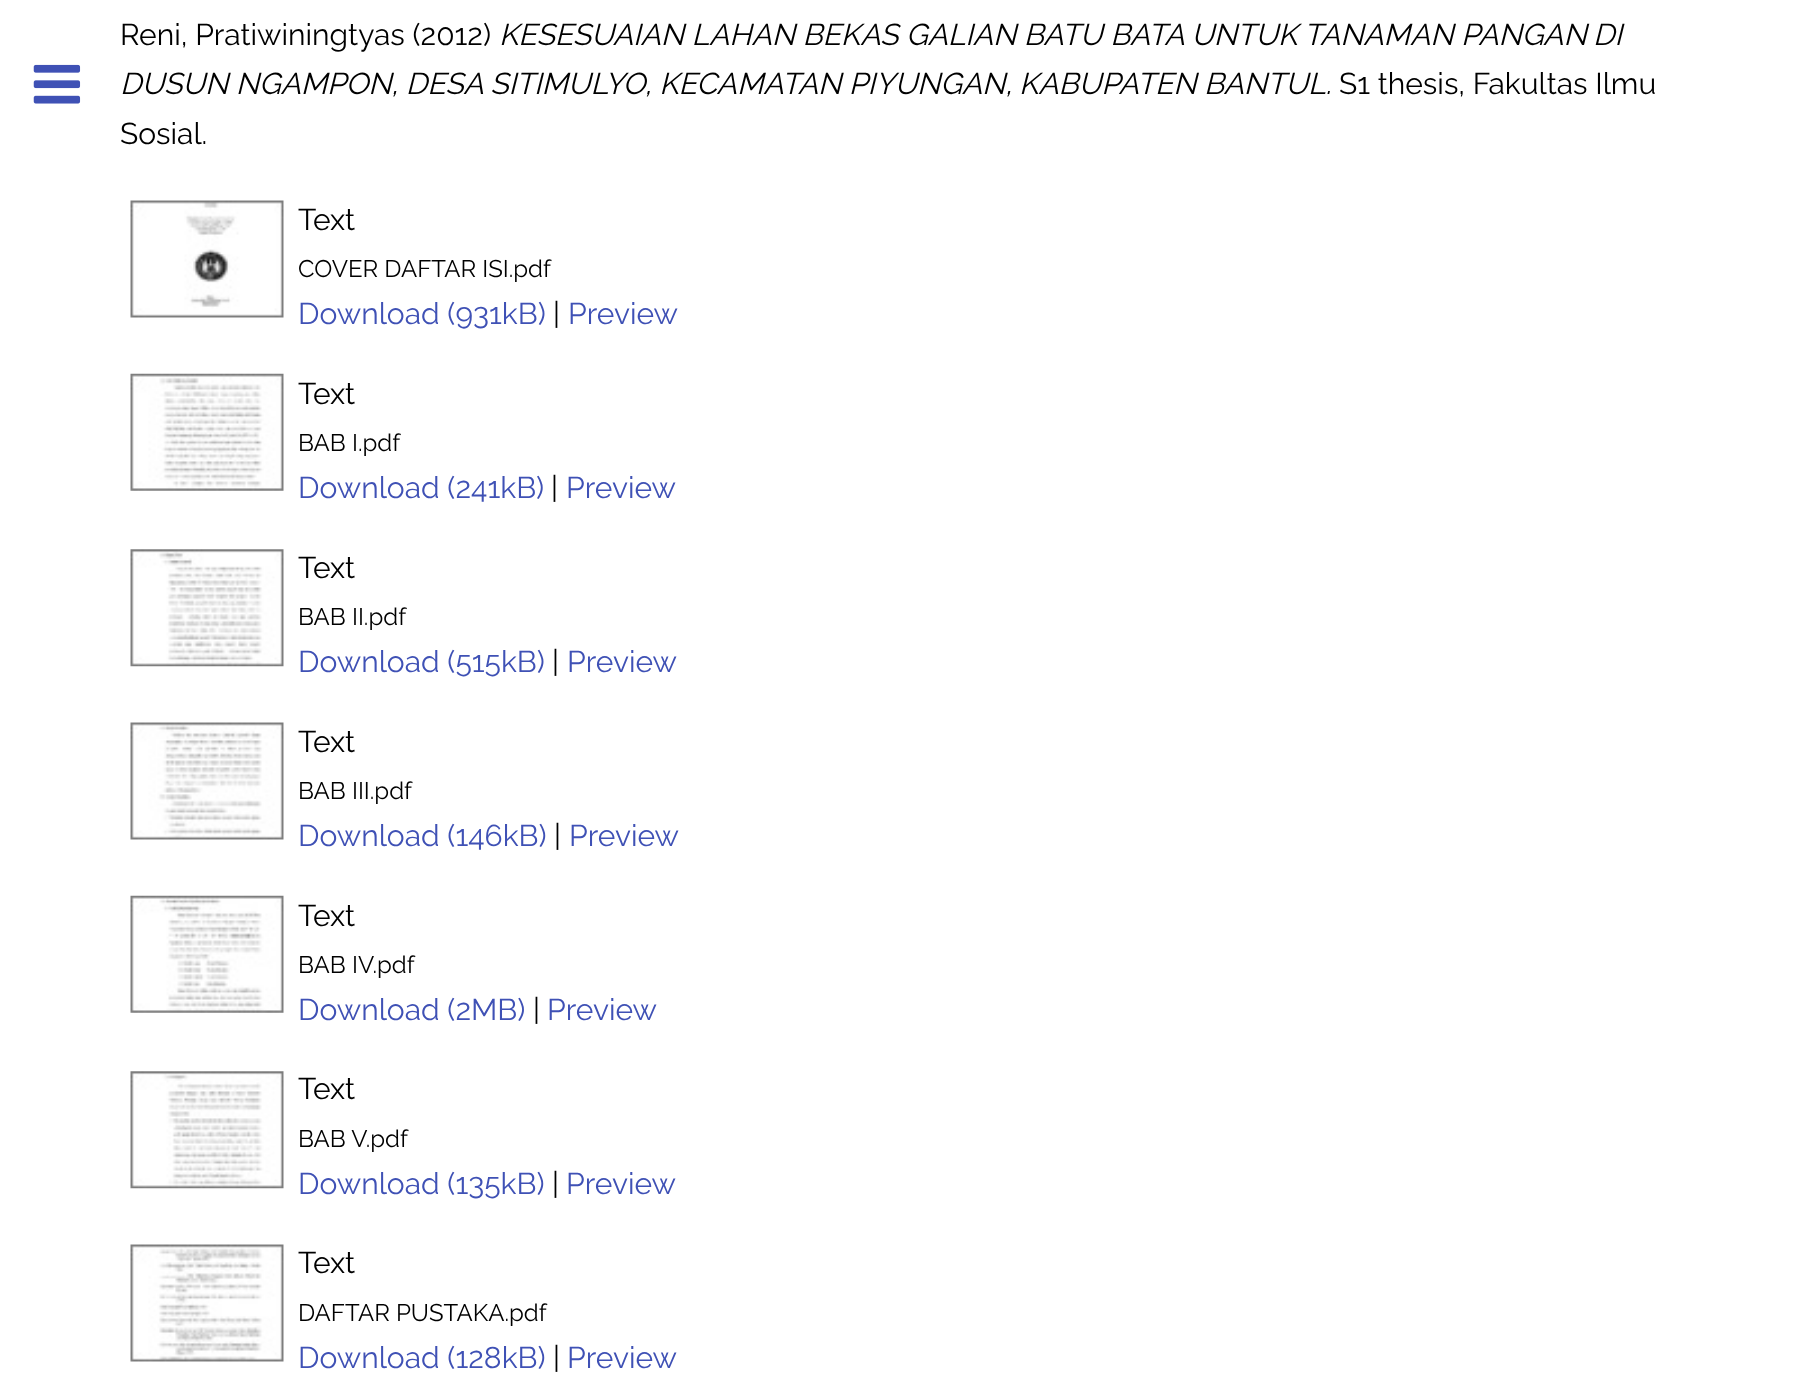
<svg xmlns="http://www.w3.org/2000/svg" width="1812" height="1375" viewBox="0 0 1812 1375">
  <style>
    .t1 { font: 30px Raleway; fill: #000; }
    .t2 { font: italic 30px Raleway; fill: #000; }
    .t3 { font: 24px Raleway; fill: #000; }
    .t4 { font: 30px Raleway; fill: #3f51b5; }
  </style>
  <rect width="100%" height="100%" fill="#fff"/>
  <image x="33" y="64" width="48" height="40" href="images/1.png"/>
  <text x="120" y="45" class="t1">Reni, Pratiwiningtyas (2012)</text>
  <text x="499" y="45" class="t2">KESESUAIAN LAHAN BEKAS GALIAN BATU BATA UNTUK TANAMAN PANGAN</text>
  <text x="1593" y="45" class="t2">DI</text>
  <text x="120" y="94" class="t2">DUSUN NGAMPON, DESA SITIMULYO, KECAMATAN PIYUNGAN,</text>
  <text x="1019" y="94" class="t2">KABUPATEN BANTUL.</text>
  <text x="1339" y="94" class="t1">S1 thesis, Fakultas Ilmu</text>
  <text x="120" y="144" class="t1">Sosial.</text>
  <image x="130" y="200" width="154" height="118" href="images/2.png"/>
  <text x="298" y="230" class="t1">Text</text>
  <text x="298" y="277" class="t3">COVER DAFTAR ISI.pdf</text>
  <text x="298" y="324" class="t4">Download (931kB)</text>
  <text x="553" y="324" class="t1">|</text>
  <text x="568" y="324" class="t4">Preview</text>
  <image x="130" y="373" width="154" height="118" href="images/3.png"/>
  <text x="298" y="404" class="t1">Text</text>
  <text x="298" y="451" class="t3">BAB I.pdf</text>
  <text x="298" y="498" class="t4">Download (241kB)</text>
  <text x="551" y="498" class="t1">|</text>
  <text x="566" y="498" class="t4">Preview</text>
  <image x="130" y="549" width="154" height="118" href="images/4.png"/>
  <text x="298" y="578" class="t1">Text</text>
  <text x="298" y="625" class="t3">BAB II.pdf</text>
  <text x="298" y="672" class="t4">Download (515kB)</text>
  <text x="552" y="672" class="t1">|</text>
  <text x="567" y="672" class="t4">Preview</text>
  <image x="130" y="722" width="154" height="118" href="images/5.png"/>
  <text x="298" y="752" class="t1">Text</text>
  <text x="298" y="799" class="t3">BAB III.pdf</text>
  <text x="298" y="846" class="t4">Download (146kB)</text>
  <text x="554" y="846" class="t1">|</text>
  <text x="569" y="846" class="t4">Preview</text>
  <image x="130" y="895" width="154" height="118" href="images/6.png"/>
  <text x="298" y="926" class="t1">Text</text>
  <text x="298" y="973" class="t3">BAB IV.pdf</text>
  <text x="298" y="1020" class="t4">Download (2MB)</text>
  <text x="533" y="1020" class="t1">|</text>
  <text x="547" y="1020" class="t4">Preview</text>
  <image x="130" y="1071" width="154" height="118" href="images/7.png"/>
  <text x="298" y="1099" class="t1">Text</text>
  <text x="298" y="1147" class="t3">BAB V.pdf</text>
  <text x="298" y="1194" class="t4">Download (135kB)</text>
  <text x="552" y="1194" class="t1">|</text>
  <text x="566" y="1194" class="t4">Preview</text>
  <image x="130" y="1244" width="154" height="118" href="images/8.png"/>
  <text x="298" y="1273" class="t1">Text</text>
  <text x="298" y="1321" class="t3">DAFTAR PUSTAKA.pdf</text>
  <text x="298" y="1368" class="t4">Download (128kB)</text>
  <text x="553" y="1368" class="t1">|</text>
  <text x="567" y="1368" class="t4">Preview</text>
</svg>
